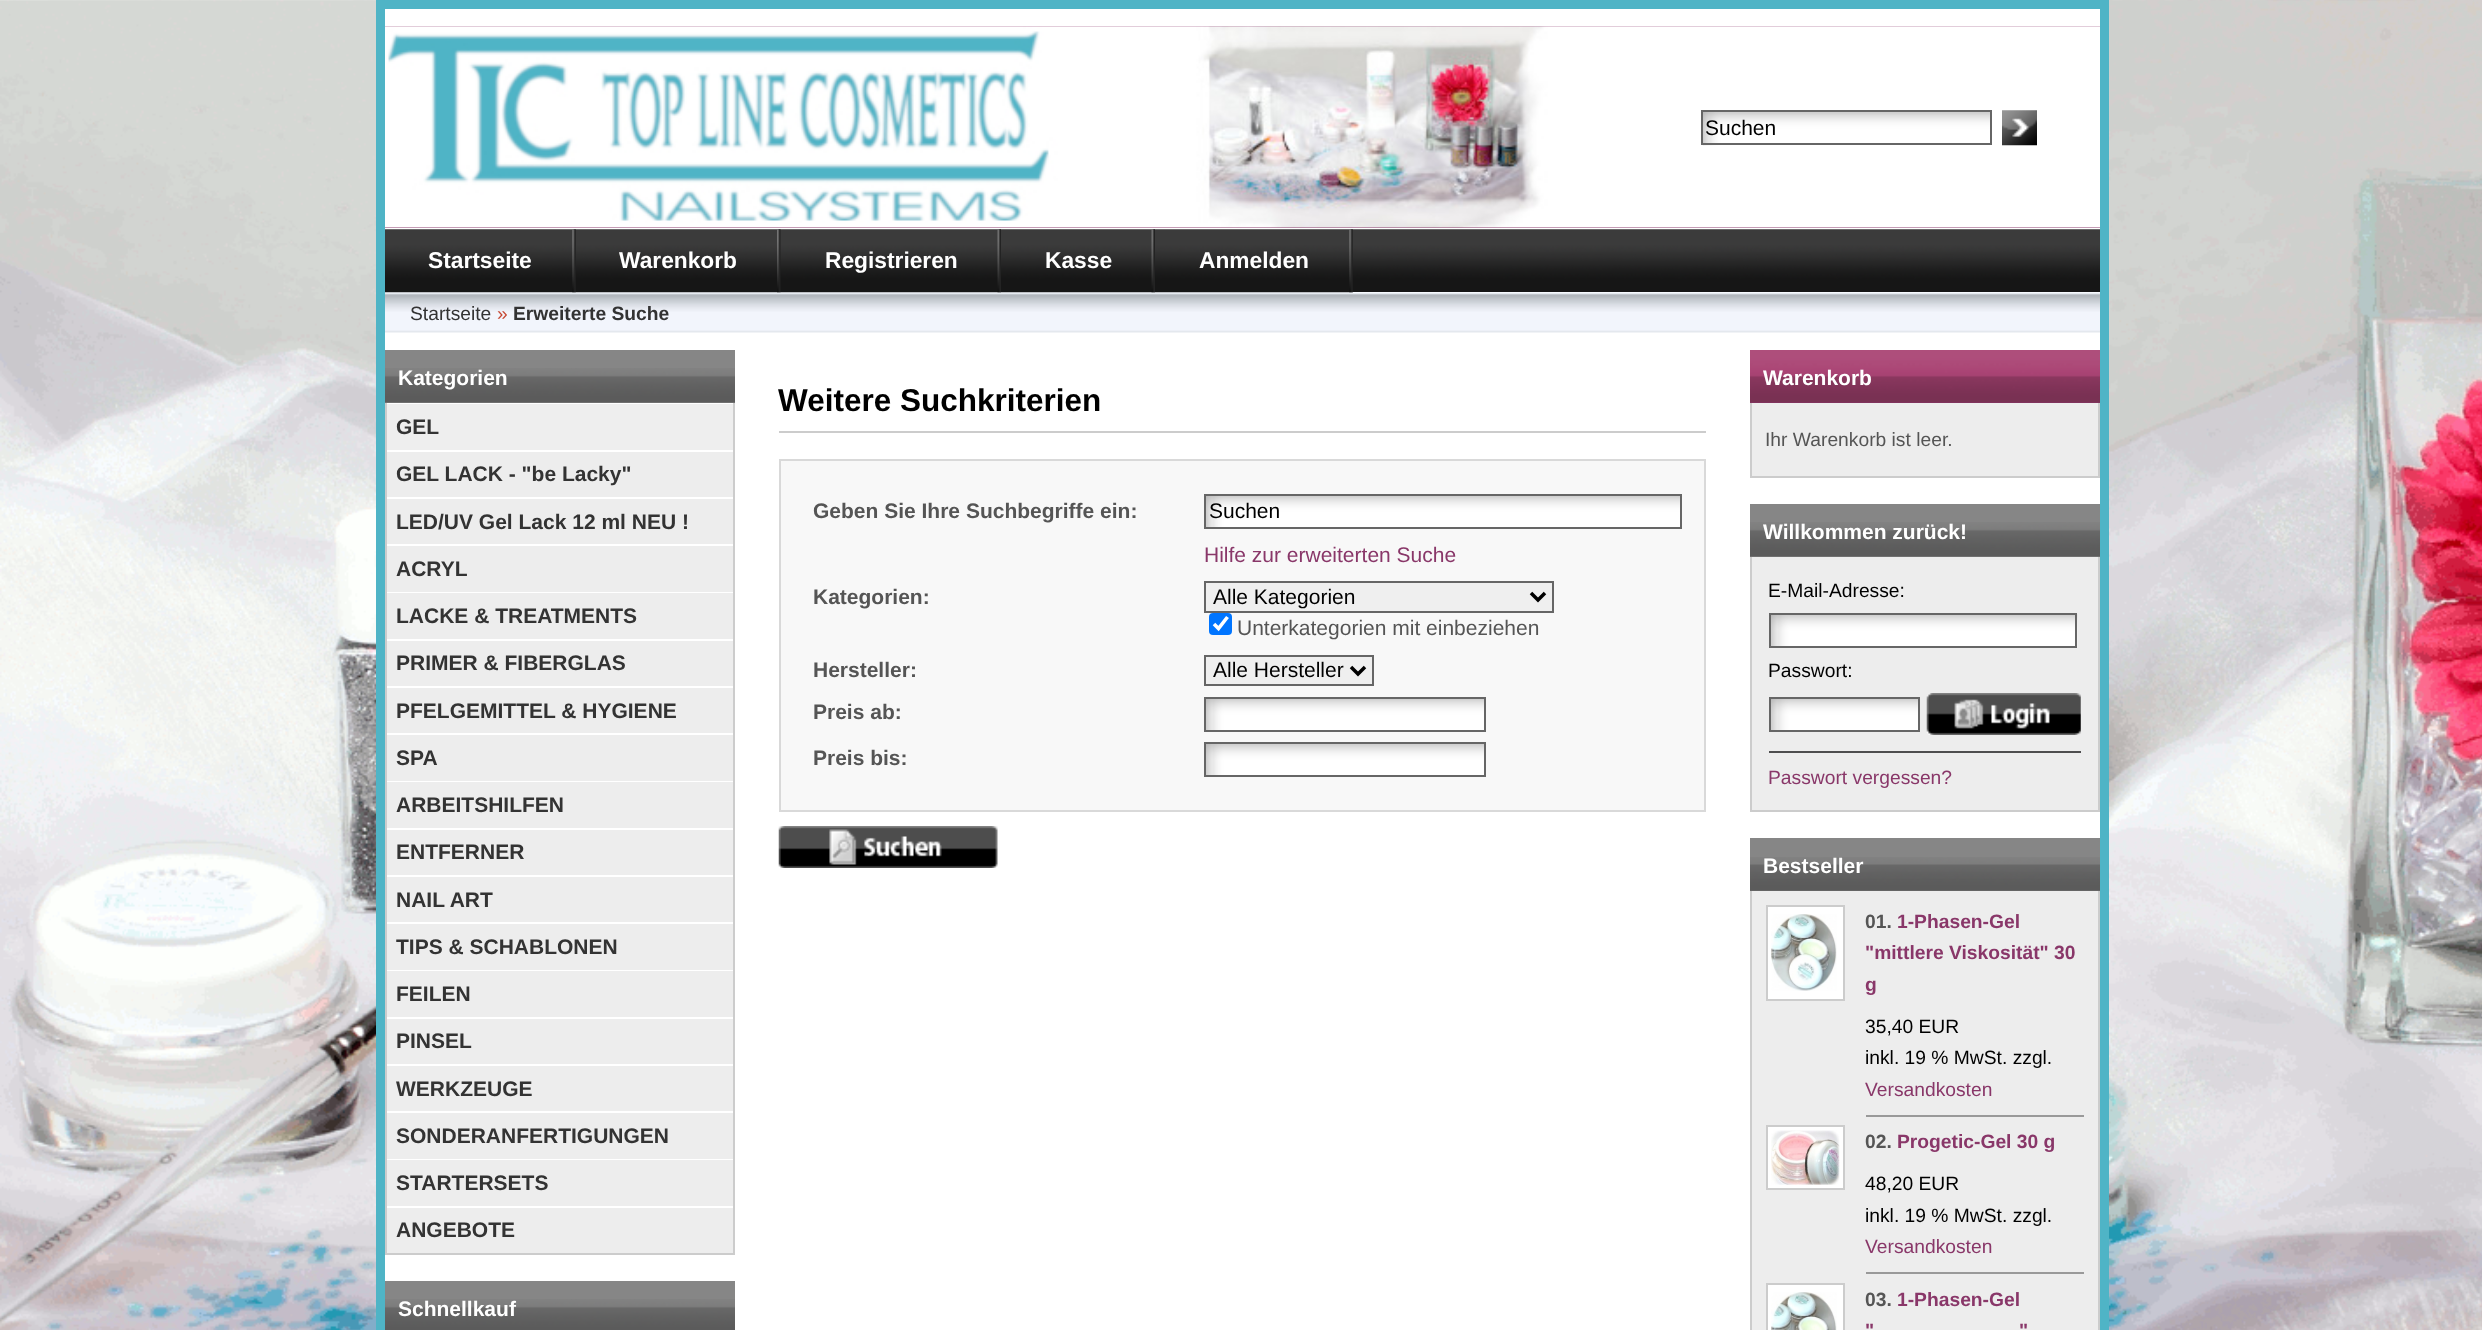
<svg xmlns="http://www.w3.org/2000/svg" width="2482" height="1330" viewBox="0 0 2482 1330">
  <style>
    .t1 { font: 21px Liberation Sans; fill: #000; }
    .t2 { font: bold 22.75px Liberation Sans; fill: #fff; }
    .t3 { font: 19.25px Liberation Sans; fill: #333; }
    .t4 { font: 19.25px Liberation Sans; fill: #c64934; }
    .t5 { font: bold 19.25px Liberation Sans; fill: #333; }
    .t6 { font: bold 21px Liberation Sans; fill: #fff; }
    .t7 { font: bold 21px Liberation Sans; fill: #333; }
    .t8 { font: bold 31.5px Liberation Sans; fill: #000; }
    .t9 { font: bold 21px Liberation Sans; fill: #555; }
    .t10 { font: 21px Liberation Sans; fill: #893769; }
    .t11 { font: 21px Liberation Sans; fill: #555; }
    .t12 { font: 19.25px Liberation Sans; fill: #555; }
    .t13 { font: 19.25px Liberation Sans; fill: #000; }
    .t14 { font: 19.25px Liberation Sans; fill: #893769; }
    .t15 { font: bold 19.25px Liberation Sans; fill: #555; }
    .t16 { font: bold 19.25px Liberation Sans; fill: #893769; }
  </style>
  <rect width="100%" height="100%" fill="#fff"/>
  <image x="0" y="0" width="2482" height="1330" href="images/1.png"/>
  <rect x="385" y="350" width="1715" height="980" fill="#fff"/>
  <rect x="380.5" y="4.5" width="1724" height="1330" fill="none" stroke="#4fb4c6" stroke-width="9"/>
  <rect x="385" y="26" width="1715" height="202" fill="#893769"/>
  <image x="385" y="26" width="1715" height="202" href="images/2.png"/>
  <rect x="385" y="9" width="1715" height="17" fill="#fff"/>
  <rect x="385" y="228" width="1715" height="2" fill="#fff"/>
  <image x="1702" y="112" width="290" height="34" href="images/3.png"/>
  <rect x="1702" y="111" width="289" height="33" fill="none" stroke="#666" stroke-width="2"/>
  <text x="1705" y="135" class="t1">Suchen</text>
  <image x="2002" y="110" width="35" height="36" href="images/4.png"/>
  <image x="385" y="229" width="1715" height="63" href="images/5.png"/>
  <rect x="385" y="292" width="1715" height="58" fill="#fff"/>
  <image x="385" y="292" width="1715" height="41" href="images/12.png"/>
  <image x="385" y="292" width="968" height="1" href="images/6.png"/>
  <image x="572" y="229" width="4" height="64" href="images/7.png"/>
  <text x="428" y="268" class="t2">Startseite</text>
  <image x="777" y="229" width="4" height="64" href="images/8.png"/>
  <text x="619" y="268" class="t2">Warenkorb</text>
  <image x="997" y="229" width="4" height="64" href="images/9.png"/>
  <text x="825" y="268" class="t2">Registrieren</text>
  <image x="1151" y="229" width="4" height="64" href="images/10.png"/>
  <text x="1045" y="268" class="t2">Kasse</text>
  <image x="1349" y="229" width="4" height="64" href="images/11.png"/>
  <text x="1199" y="268" class="t2">Anmelden</text>
  <text x="410" y="320" class="t3">Startseite</text>
  <text x="497" y="320" class="t4">»</text>
  <text x="513" y="320" class="t5">Erweiterte Suche</text>
  <rect x="385" y="350" width="350" height="53" fill="#868686"/>
  <image x="385" y="368" width="350" height="35" href="images/13.png"/>
  <text x="398" y="385" class="t6">Kategorien</text>
  <rect x="387" y="452" width="346" height="801" fill="#ededed"/>
  <rect x="733" y="403" width="2" height="852" fill="#ccc"/>
  <rect x="385" y="1253" width="350" height="2" fill="#ccc"/>
  <rect x="385" y="403" width="2" height="852" fill="#ccc"/>
  <rect x="387" y="404" width="346" height="46" fill="#eee"/>
  <text x="396" y="434" class="t7">GEL</text>
  <text x="396" y="481" class="t7">GEL LACK - "be Lacky"</text>
  <rect x="387" y="497" width="346" height="2" fill="#fff"/>
  <text x="396" y="529" class="t7">LED/UV Gel Lack 12 ml NEU !</text>
  <rect x="387" y="544" width="346" height="2" fill="#fff"/>
  <text x="396" y="576" class="t7">ACRYL</text>
  <rect x="387" y="592" width="346" height="1" fill="#fff"/>
  <text x="396" y="623" class="t7">LACKE &amp; TREATMENTS</text>
  <rect x="387" y="639" width="346" height="2" fill="#fff"/>
  <text x="396" y="670" class="t7">PRIMER &amp; FIBERGLAS</text>
  <rect x="387" y="686" width="346" height="2" fill="#fff"/>
  <text x="396" y="718" class="t7">PFELGEMITTEL &amp; HYGIENE</text>
  <rect x="387" y="733" width="346" height="2" fill="#fff"/>
  <text x="396" y="765" class="t7">SPA</text>
  <rect x="387" y="781" width="346" height="1" fill="#fff"/>
  <text x="396" y="812" class="t7">ARBEITSHILFEN</text>
  <rect x="387" y="828" width="346" height="2" fill="#fff"/>
  <text x="396" y="859" class="t7">ENTFERNER</text>
  <rect x="387" y="875" width="346" height="2" fill="#fff"/>
  <text x="396" y="907" class="t7">NAIL ART</text>
  <rect x="387" y="922" width="346" height="2" fill="#fff"/>
  <text x="396" y="954" class="t7">TIPS &amp; SCHABLONEN</text>
  <rect x="387" y="970" width="346" height="1" fill="#fff"/>
  <text x="396" y="1001" class="t7">FEILEN</text>
  <rect x="387" y="1017" width="346" height="2" fill="#fff"/>
  <text x="396" y="1048" class="t7">PINSEL</text>
  <rect x="387" y="1064" width="346" height="2" fill="#fff"/>
  <text x="396" y="1096" class="t7">WERKZEUGE</text>
  <rect x="387" y="1111" width="346" height="2" fill="#fff"/>
  <text x="396" y="1143" class="t7">SONDERANFERTIGUNGEN</text>
  <rect x="387" y="1159" width="346" height="1" fill="#fff"/>
  <text x="396" y="1190" class="t7">STARTERSETS</text>
  <rect x="387" y="1206" width="346" height="2" fill="#fff"/>
  <text x="396" y="1237" class="t7">ANGEBOTE</text>
  <rect x="385" y="1281" width="350" height="18" fill="#868686"/>
  <image x="385" y="1299" width="350" height="31" href="images/14.png"/>
  <text x="398" y="1316" class="t6">Schnellkauf</text>
  <rect x="779" y="431" width="927" height="2" fill="#ccc"/>
  <text x="778" y="411" class="t8">Weitere Suchkriterien</text>
  <rect x="780" y="460" width="925" height="351" fill="#f8f8f8" stroke="#d9d9d9" stroke-width="2"/>
  <text x="813" y="518" class="t9">Geben Sie Ihre Suchbegriffe ein:</text>
  <image x="1206" y="496" width="474" height="31" href="images/15.png"/>
  <rect x="1205" y="495" width="476" height="33" fill="none" stroke="#666" stroke-width="2"/>
  <text x="1209" y="518" class="t1">Suchen</text>
  <text x="1204" y="562" class="t10">Hilfe zur erweiterten Suche</text>
  <text x="813" y="604" class="t9">Kategorien:</text>
  <rect x="1205" y="582" width="348" height="30" fill="#efefef" stroke="#666" stroke-width="2"/>
  <path d="M1531 593L1538 600L1545 593" fill="none" stroke="#000" stroke-width="3.5"/>
  <text x="1213" y="604" class="t1">Alle Kategorien</text>
  <rect x="1209" y="613" width="23" height="22" rx="4" fill="#0075ff"/>
  <path d="M1214 624L1218.5 628.5L1227.5 617" fill="none" stroke="#fff" stroke-width="3.6"/>
  <text x="1237" y="635" class="t11">Unterkategorien mit einbeziehen</text>
  <text x="813" y="677" class="t9">Hersteller:</text>
  <rect x="1205" y="656" width="168" height="29" fill="#efefef" stroke="#666" stroke-width="2"/>
  <path d="M1351 667L1358 674L1365 667" fill="none" stroke="#000" stroke-width="3.5"/>
  <text x="1213" y="677" class="t1">Alle Hersteller</text>
  <text x="813" y="719" class="t9">Preis ab:</text>
  <image x="1206" y="699" width="278" height="31" href="images/16.png"/>
  <rect x="1205" y="698" width="280" height="33" fill="none" stroke="#666" stroke-width="2"/>
  <text x="813" y="765" class="t9">Preis bis:</text>
  <image x="1206" y="744" width="278" height="31" href="images/17.png"/>
  <rect x="1205" y="743" width="280" height="33" fill="none" stroke="#666" stroke-width="2"/>
  <image x="778" y="826" width="220" height="42" href="images/18.png"/>
  <rect x="1750" y="402" width="350" height="1" fill="#893769"/>
  <image x="1750" y="350" width="350" height="53" href="images/19.png"/>
  <text x="1763" y="385" class="t6">Warenkorb</text>
  <rect x="1752" y="403" width="346" height="73" fill="#ededed"/>
  <rect x="2098" y="403" width="2" height="75" fill="#ccc"/>
  <rect x="1750" y="476" width="350" height="2" fill="#ccc"/>
  <rect x="1750" y="403" width="2" height="75" fill="#ccc"/>
  <text x="1765" y="446" class="t12">Ihr Warenkorb ist leer.</text>
  <rect x="1750" y="504" width="350" height="53" fill="#868686"/>
  <image x="1750" y="522" width="350" height="35" href="images/20.png"/>
  <text x="1763" y="539" class="t6">Willkommen zurück!</text>
  <rect x="1752" y="557" width="346" height="253" fill="#ededed"/>
  <rect x="2098" y="557" width="2" height="255" fill="#ccc"/>
  <rect x="1750" y="810" width="350" height="2" fill="#ccc"/>
  <rect x="1750" y="557" width="2" height="255" fill="#ccc"/>
  <text x="1768" y="597" class="t13">E-Mail-Adresse:</text>
  <image x="1771" y="614" width="307" height="34" href="images/21.png"/>
  <rect x="1770" y="614" width="306" height="33" fill="none" stroke="#666" stroke-width="2"/>
  <text x="1768" y="677" class="t13">Passwort:</text>
  <image x="1771" y="699" width="147" height="31" href="images/22.png"/>
  <rect x="1770" y="698" width="149" height="33" fill="none" stroke="#666" stroke-width="2"/>
  <image x="1926" y="693" width="155" height="42" href="images/23.png"/>
  <rect x="1769" y="751" width="312" height="2" fill="#4e4e4f"/>
  <text x="1768" y="784" class="t14">Passwort vergessen?</text>
  <rect x="1750" y="838" width="350" height="53" fill="#868686"/>
  <image x="1750" y="857" width="350" height="34" href="images/24.png"/>
  <text x="1763" y="873" class="t6">Bestseller</text>
  <rect x="1752" y="891" width="346" height="439" fill="#ededed"/>
  <rect x="2098" y="891" width="2" height="439" fill="#ccc"/>
  <rect x="1750" y="891" width="2" height="439" fill="#ccc"/>
  <rect x="1767" y="906" width="77" height="94" fill="#fff" stroke="#ccc" stroke-width="2"/>
  <image x="1771" y="914" width="66" height="77" href="images/25.png"/>
  <text x="1865" y="928" class="t15">01.</text>
  <text x="1897" y="928" class="t16">1-Phasen-Gel</text>
  <text x="1865" y="959" class="t16">"mittlere Viskosität" 30</text>
  <text x="1865" y="991" class="t16">g</text>
  <text x="1865" y="1033" class="t13">35,40 EUR</text>
  <text x="1865" y="1064" class="t13">inkl. 19 % MwSt. zzgl.</text>
  <text x="1865" y="1096" class="t14">Versandkosten</text>
  <rect x="1866" y="1115" width="218" height="2" fill="#999"/>
  <rect x="1767" y="1126" width="77" height="63" fill="#fff" stroke="#ccc" stroke-width="2"/>
  <image x="1771" y="1130" width="69" height="55" href="images/26.png"/>
  <text x="1865" y="1148" class="t15">02.</text>
  <text x="1897" y="1148" class="t16">Progetic-Gel 30 g</text>
  <text x="1865" y="1190" class="t13">48,20 EUR</text>
  <text x="1865" y="1222" class="t13">inkl. 19 % MwSt. zzgl.</text>
  <text x="1865" y="1253" class="t14">Versandkosten</text>
  <rect x="1866" y="1272" width="218" height="2" fill="#999"/>
  <rect x="1767" y="1284" width="77" height="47" fill="#fff" stroke="#ccc" stroke-width="2"/>
  <image x="1771" y="1292" width="66" height="38" href="images/27.png"/>
  <text x="1865" y="1306" class="t15">03.</text>
  <text x="1897" y="1306" class="t16">1-Phasen-Gel</text>
  <text x="1865" y="1337" class="t16">"</text>
  <text x="2019" y="1337" class="t16">"</text>
</svg>
